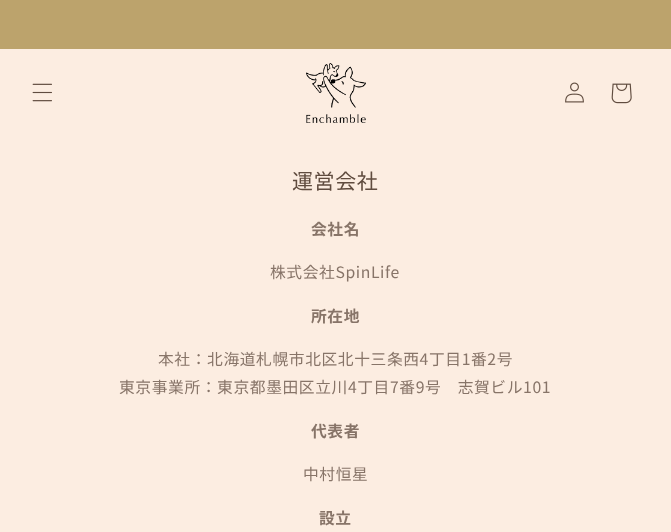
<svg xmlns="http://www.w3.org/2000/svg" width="671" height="532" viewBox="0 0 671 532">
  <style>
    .t1 { font: 21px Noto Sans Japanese; letter-spacing: 0.6px; fill: #604c3f; }
    .t2 { font: bold 15.75px Noto Sans Japanese; letter-spacing: 0.6px; fill: #877468; }
    .t3 { font: 15.75px Noto Sans Japanese; letter-spacing: 0.6px; fill: #877468; }
  </style>
  <rect width="100%" height="100%" fill="#fcede1"/>
  <rect x="0" y="0" width="671" height="49" fill="#bca36c"/>
  <image x="32" y="83" width="20" height="19" href="images/1.png"/>
  <image x="306" y="63" width="60" height="60" href="images/2.png"/>
  <image x="565" y="82" width="19" height="21" href="images/3.png"/>
  <image x="611" y="83" width="21" height="21" href="images/4.png"/>
  <text x="292" y="189" class="t1">運営会社</text>
  <text x="311" y="235" class="t2">会社名</text>
  <text x="270" y="278" class="t3">株式会社SpinLife</text>
  <text x="311" y="322" class="t2">所在地</text>
  <text x="158" y="365" class="t3">本社：北海道札幌市北区北十三条西4丁目1番2号</text>
  <text x="119" y="393" class="t3">東京事業所：東京都墨田区立川4丁目7番9号　志賀ビル101</text>
  <text x="311" y="437" class="t2">代表者</text>
  <text x="303" y="480" class="t3">中村恒星</text>
  <text x="319" y="524" class="t2">設立</text>
</svg>
